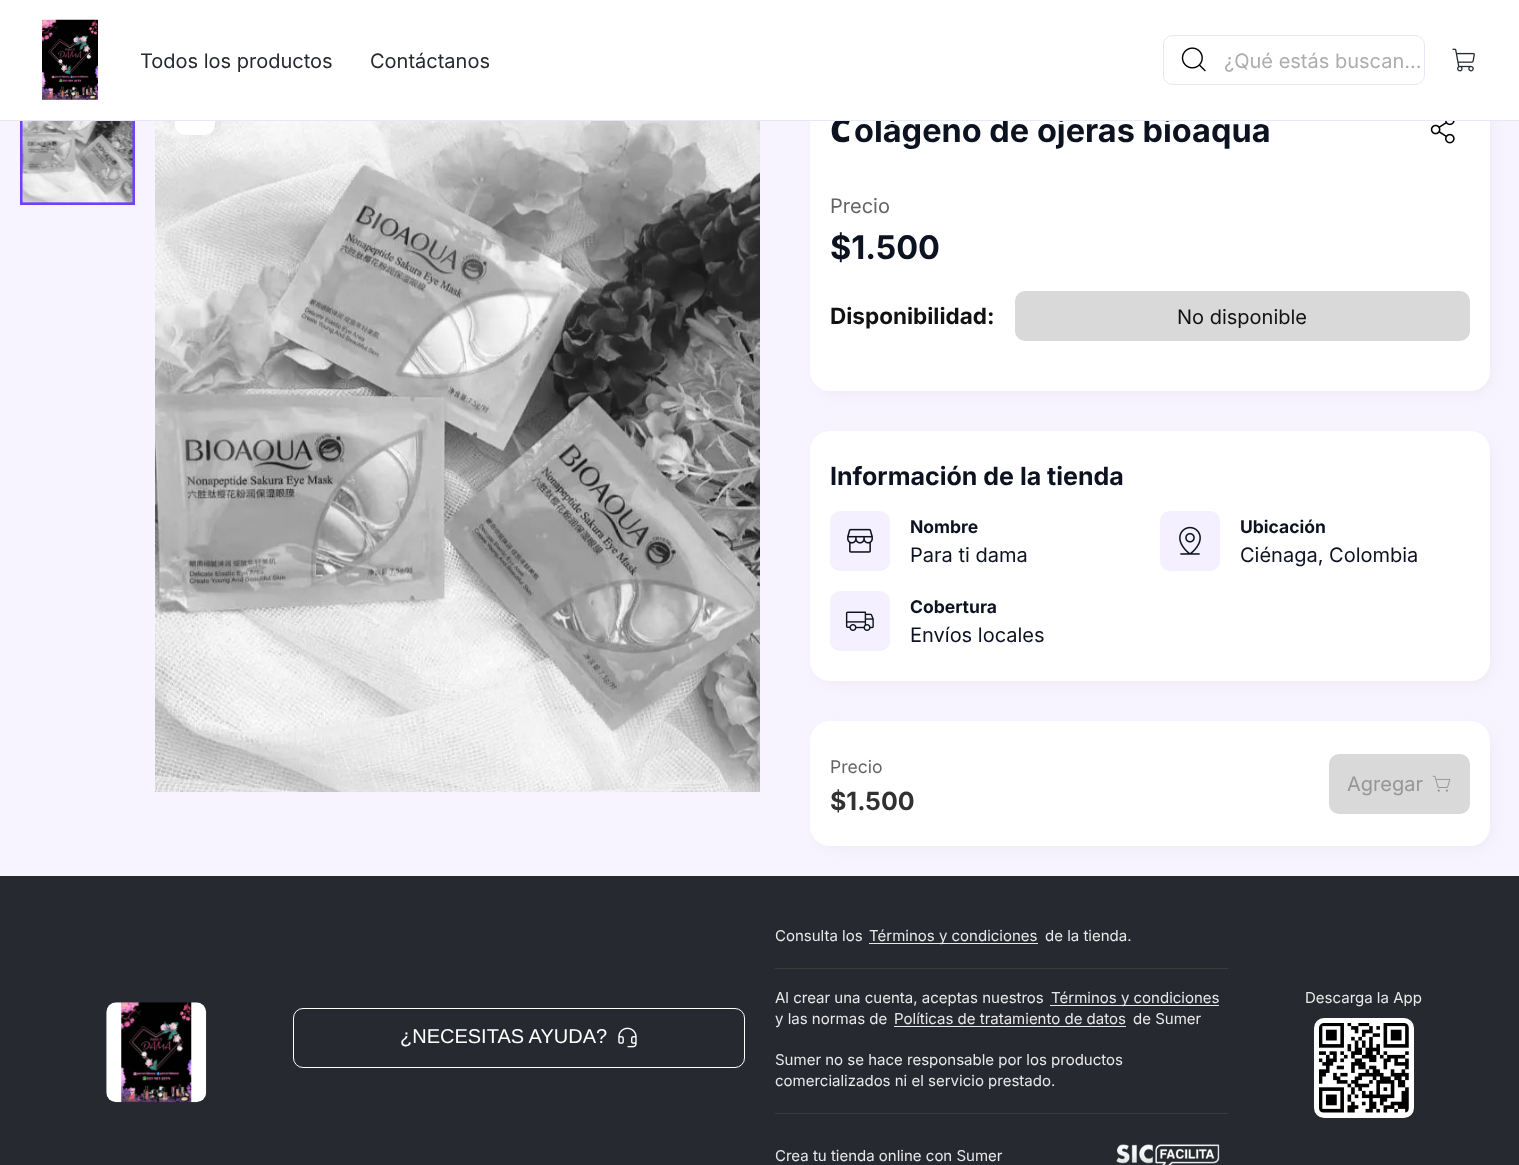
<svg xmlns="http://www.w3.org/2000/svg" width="1519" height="1165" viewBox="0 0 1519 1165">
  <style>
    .t1 { font: 900 32.5px Noto Sans; fill: #0c1220; }
    .t2 { font: bold 32.5px Inter; fill: #0c1220; }
    .t3 { font: 20px Inter; fill: #262930; }
    .t4 { font: 20px Inter; fill: #acadaf; }
    .t5 { font: 20px Inter; fill: #646464; }
    .t6 { font: bold 22.5px Inter; fill: #111; }
    .t7 { font: 20px Inter; fill: #111; }
    .t8 { font: bold 25px Inter; fill: #0c1220; }
    .t9 { font: bold 17.5px Inter; fill: #0c1220; }
    .t10 { font: 20px Inter; fill: #0c1220; }
    .t11 { font: 17.5px Inter; fill: #646464; }
    .t12 { font: bold 25px Inter; fill: #313131; }
    .t13 { font: 20px Inter; fill: #969696; }
    .t14 { font: 15px Inter; fill: #e9e9e9; }
    .t15 { font: 20px Liberation Sans; fill: #fff; }
  </style>
  <rect width="100%" height="100%" fill="#f8f4ff"/>
  <rect x="21.5" y="79.5" width="112" height="124" fill="none" stroke="#703fff" stroke-width="3"/>
  <image x="155" y="121" width="605" height="671" href="images/5.png"/>
  <rect x="184" y="108" width="30" height="27" rx="5" fill="#b4b4b42e" filter="blur(8px)"/>
  <rect x="175" y="98" width="40" height="37" rx="10" fill="#fff"/>
  <rect x="819" y="88" width="670" height="303" rx="15" fill="#b4b4b42e" filter="blur(8px)"/>
  <rect x="810" y="78" width="680" height="313" rx="20" fill="#fff"/>
  <text x="830" y="142" class="t1">C</text>
  <text x="854" y="142" class="t2">olágeno de ojeras bioaqua</text>
  <rect x="0" y="0" width="1519" height="120" fill="#fff"/>
  <rect x="0" y="120" width="1519" height="1" fill="#e6e8f9"/>
  <image x="41" y="19" width="58" height="81" href="images/1.png"/>
  <text x="140" y="68" class="t3">Todos los productos</text>
  <text x="370" y="68" class="t3">Contáctanos</text>
  <rect x="1163.5" y="35.5" width="261" height="49" rx="9.5" fill="none" stroke="#e6e8f9"/>
  <image x="1181" y="47" width="25" height="25" href="images/2.png"/>
  <text x="1224" y="68" class="t4">¿Qué estás buscan…</text>
  <image x="1452" y="48" width="23" height="24" href="images/3.png"/>
  <image x="22" y="121" width="111" height="82" href="images/4.png"/>
  <image x="1430" y="121" width="25" height="23" href="images/6.png"/>
  <text x="830" y="213" class="t5">Precio</text>
  <text x="830" y="259" class="t2">$1.500</text>
  <text x="830" y="324" class="t6">Disponibilidad:</text>
  <rect x="1015" y="291" width="455" height="50" rx="10" fill="#d9d9d9"/>
  <text x="1177" y="324" class="t7">No disponible</text>
  <rect x="819" y="441" width="670" height="240" rx="15" fill="#b4b4b42e" filter="blur(8px)"/>
  <rect x="810" y="431" width="680" height="250" rx="20" fill="#fff"/>
  <text x="830" y="485" class="t8">Información de la tienda</text>
  <rect x="830" y="511" width="60" height="60" rx="10" fill="#f4f0ff"/>
  <image x="847" y="528" width="26" height="25" href="images/7.png"/>
  <text x="910" y="533" class="t9">Nombre</text>
  <text x="910" y="562" class="t10">Para ti dama</text>
  <rect x="1160" y="511" width="60" height="60" rx="10" fill="#f4f0ff"/>
  <image x="1179" y="526" width="22" height="29" href="images/8.png"/>
  <text x="1240" y="533" class="t9">Ubicación</text>
  <text x="1240" y="562" class="t10">Ciénaga, Colombia</text>
  <rect x="830" y="591" width="60" height="60" rx="10" fill="#f4f0ff"/>
  <image x="845" y="611" width="29" height="20" href="images/9.png"/>
  <text x="910" y="613" class="t9">Cobertura</text>
  <text x="910" y="642" class="t10">Envíos locales</text>
  <rect x="819" y="731" width="670" height="115" rx="15" fill="#b4b4b42e" filter="blur(8px)"/>
  <rect x="810" y="721" width="680" height="125" rx="20" fill="#fff"/>
  <text x="830" y="773" class="t11">Precio</text>
  <text x="830" y="810" class="t12">$1.500</text>
  <rect x="1329" y="754" width="141" height="60" rx="10" fill="#d9d9d9"/>
  <text x="1347" y="791" class="t13">Agregar</text>
  <image x="1432" y="775" width="19" height="17" href="images/10.png"/>
  <rect x="0" y="876" width="1519" height="289" fill="#262930"/>
  <text x="775" y="941" class="t14">Consulta los</text>
  <rect x="869" y="943" width="169" height="1" fill="#e9e9e9"/>
  <text x="869" y="941" class="t14">Términos y condiciones</text>
  <text x="1045" y="941" class="t14">de la tienda.</text>
  <rect x="775" y="968" width="453" height="1" fill="#3b3b3b"/>
  <text x="775" y="1003" class="t14">Al crear una cuenta, aceptas nuestros</text>
  <rect x="1050" y="1005" width="169" height="1" fill="#e9e9e9"/>
  <text x="1051" y="1003" class="t14">Términos y condiciones</text>
  <text x="775" y="1024" class="t14">y las normas de</text>
  <text x="894" y="1024" class="t14">Políticas de tratamiento de datos</text>
  <rect x="894" y="1026" width="232" height="1" fill="#e9e9e9"/>
  <text x="1133" y="1024" class="t14">de Sumer</text>
  <text x="775" y="1065" class="t14">Sumer no se hace responsable por los productos</text>
  <text x="775" y="1086" class="t14">comercializados ni el servicio prestado.</text>
  <rect x="775" y="1113" width="453" height="1" fill="#3b3b3b"/>
  <text x="775" y="1161" class="t14">Crea tu tienda online con Sumer</text>
  <image x="1116" y="1144" width="104" height="21" href="images/11.png"/>
  <text x="1305" y="1003" class="t14">Descarga la App</text>
  <rect x="1316.5" y="1020.5" width="95" height="95" rx="7.5" fill="#fff" stroke="#fff" stroke-width="5"/>
  <image x="1319" y="1023" width="90" height="90" href="images/12.png"/>
  <image x="106" y="1002" width="101" height="101" href="images/13.png"/>
  <rect x="293.5" y="1008.5" width="451" height="59" rx="9.5" fill="none" stroke="#fff"/>
  <text x="400" y="1043" class="t15">¿NECESITAS AYUDA?</text>
  <image x="618" y="1027" width="19" height="21" href="images/14.png"/>
</svg>
